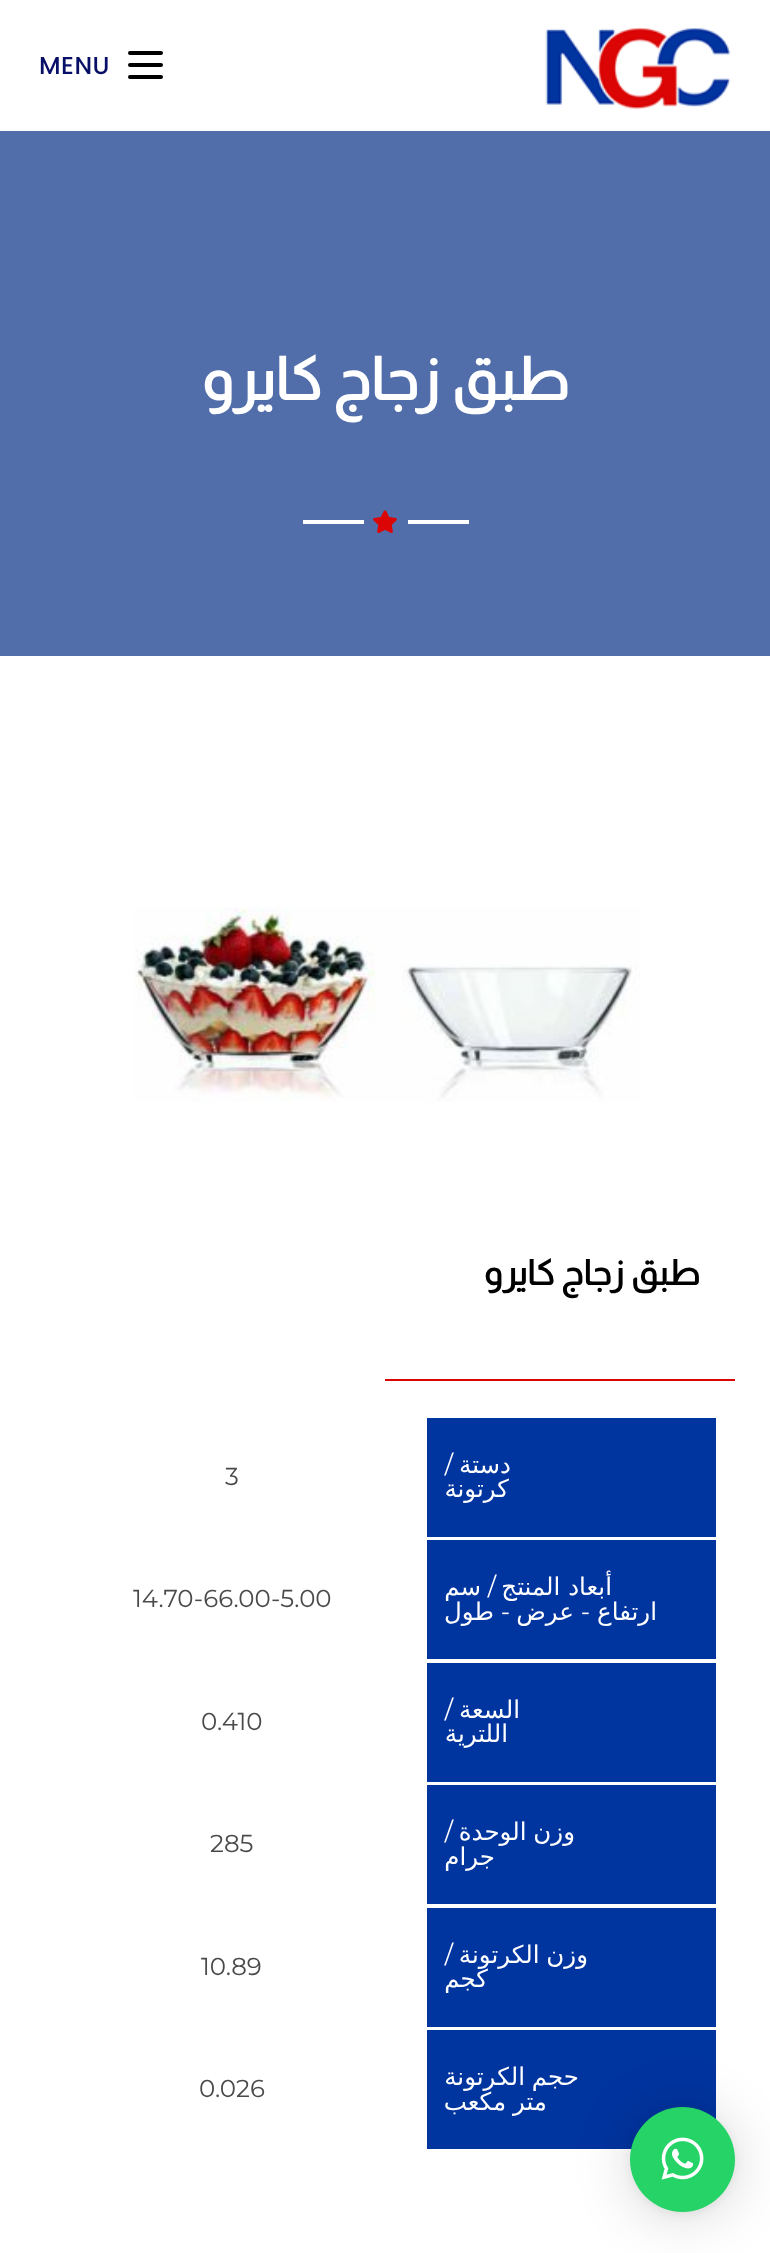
<svg xmlns="http://www.w3.org/2000/svg" width="770" height="2253" viewBox="0 0 770 2253">
  <style>
    .t1 { font: 500 24.5px Poppins; letter-spacing: 0.5px; fill: #080f66; }
    .t2 { font: bold 59.5px Almarai; direction: rtl; fill: #fff; }
    .t3 { font: bold 35px Almarai; direction: rtl; fill: #000; }
    .t4 { font: 24.5px DejaVu Sans; direction: rtl; fill: #fff; }
    .t5 { font: 24.5px Montserrat; direction: rtl; fill: #fff; }
    .t6 { font: 24.5px Montserrat; fill: #4a4a4a; }
  </style>
  <rect width="100%" height="100%" fill="#fff"/>
  <image x="545" y="27" width="186" height="83" href="images/1.png"/>
  <rect x="128" y="63" width="35" height="4" rx="2" fill="#000"/>
  <rect x="128" y="51" width="35" height="4" rx="2" fill="#000"/>
  <rect x="128" y="75" width="35" height="4" rx="2" fill="#000"/>
  <text x="39" y="74" class="t1">MENU</text>
  <rect x="0" y="131" width="770" height="525" fill="#516eaa"/>
  <text x="569" y="400" class="t2">طبق زجاج كايرو</text>
  <rect x="408" y="520" width="61" height="4" fill="#fff"/>
  <image x="373" y="510" width="24" height="24" href="images/2.png"/>
  <rect x="303" y="520" width="61" height="4" fill="#fff"/>
  <image x="134" y="907" width="506" height="195" href="images/3.png"/>
  <text x="700" y="1285" class="t3">طبق زجاج كايرو</text>
  <rect x="385" y="1379" width="350" height="2" fill="#db0505"/>
  <rect x="427" y="1418" width="289" height="119" fill="#00349f"/>
  <text x="511" y="1473" class="t4">دستة</text>
  <text x="453" y="1473" class="t5">/</text>
  <text x="509" y="1497" class="t4">كرتونة</text>
  <text x="225" y="1485" class="t6">3</text>
  <rect x="427" y="1540" width="289" height="119" fill="#00349f"/>
  <text x="612" y="1595" class="t4">أبعاد المنتج</text>
  <text x="496" y="1595" class="t5">/</text>
  <text x="481" y="1595" class="t4">سم</text>
  <text x="657" y="1620" class="t4">ارتفاع</text>
  <text x="590" y="1620" class="t5">-</text>
  <text x="574" y="1620" class="t4">عرض</text>
  <text x="510" y="1620" class="t5">-</text>
  <text x="494" y="1620" class="t4">طول</text>
  <text x="133" y="1607" class="t6">14.70-66.00-5.00</text>
  <rect x="427" y="1663" width="289" height="119" fill="#00349f"/>
  <text x="520" y="1718" class="t4">السعة</text>
  <text x="453" y="1718" class="t5">/</text>
  <text x="508" y="1742" class="t4">اللترية</text>
  <text x="201" y="1730" class="t6">0.410</text>
  <rect x="427" y="1785" width="289" height="119" fill="#00349f"/>
  <text x="575" y="1840" word-spacing="-1" class="t4">وزن الوحدة</text>
  <text x="453" y="1840" class="t5">/</text>
  <text x="495" y="1865" class="t4">جرام</text>
  <text x="210" y="1852" class="t6">285</text>
  <rect x="427" y="1908" width="289" height="119" fill="#00349f"/>
  <text x="588" y="1963" word-spacing="-1" class="t4">وزن الكرتونة</text>
  <text x="453" y="1963" class="t5">/</text>
  <text x="488" y="1987" class="t4">كجم</text>
  <text x="201" y="1975" class="t6">10.89</text>
  <rect x="427" y="2030" width="289" height="119" fill="#00349f"/>
  <text x="579" y="2085" word-spacing="-1" class="t4">حجم الكرتونة</text>
  <text x="547" y="2110" word-spacing="-1" class="t4">متر مكعب</text>
  <text x="199" y="2097" class="t6">0.026</text>
  <rect x="630" y="2111" width="105" height="105" rx="52.5" fill="#00000029" filter="blur(28px)"/>
  <rect x="630" y="2109" width="105" height="105" rx="52.5" fill="#0000000f" filter="blur(5px)"/>
  <circle cx="682.5" cy="2159.5" r="52.5" fill="#25d366"/>
  <image x="661" y="2137" width="43" height="43" href="images/4.png"/>
</svg>
